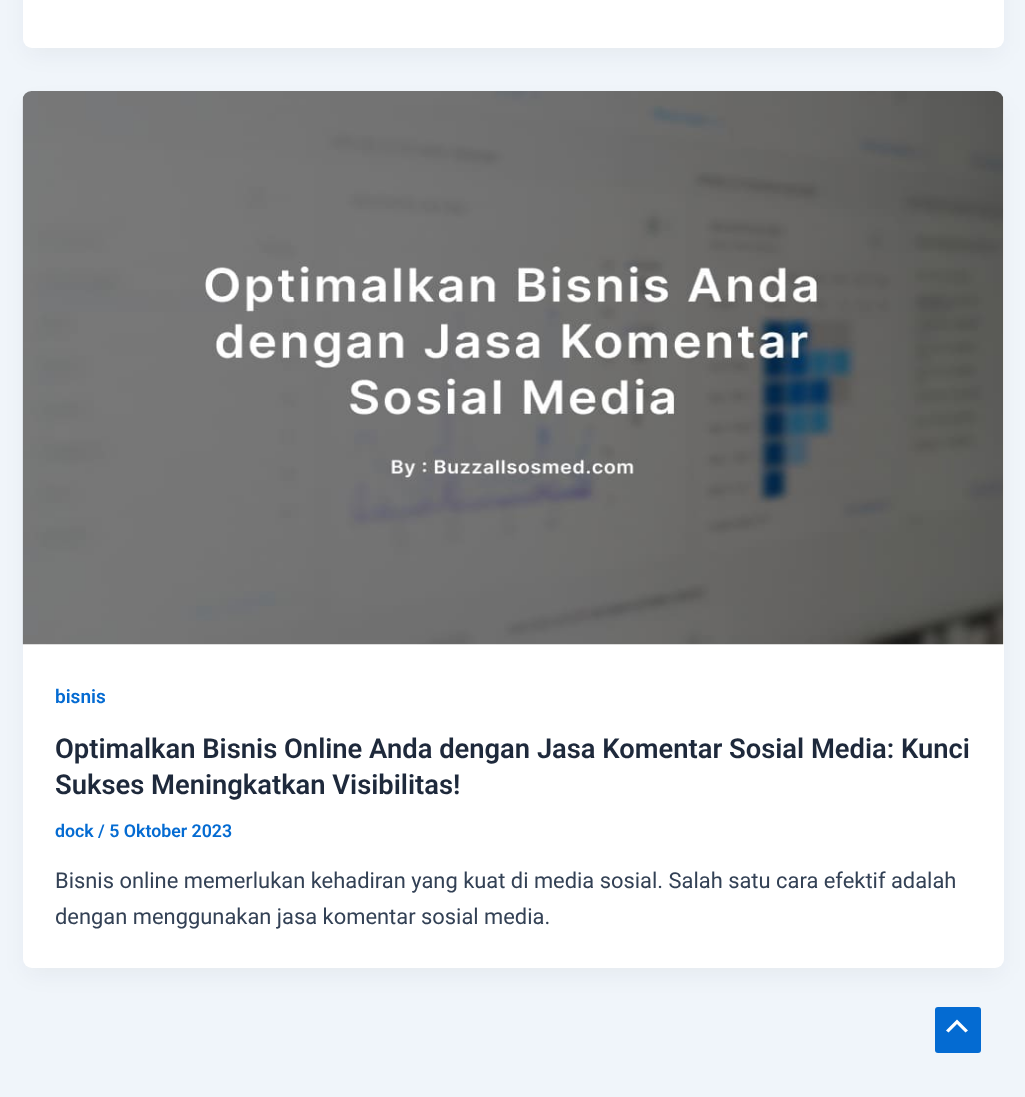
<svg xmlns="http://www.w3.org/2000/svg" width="1025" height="1097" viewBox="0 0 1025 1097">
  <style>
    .t1 { font: 600 19px Roboto; fill: #046bd2; }
    .t2 { font: 600 27.35px Roboto; fill: #1e293b; }
    .t3 { font: 600 17.75px Roboto; fill: #046bd2; }
    .t4 { font: 21.9px Roboto; fill: #334155; }
  </style>
  <rect width="100%" height="100%" fill="#f0f5fa"/>
  <rect x="26" y="-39" width="975" height="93" rx="6" fill="#1018280d" filter="blur(11px)"/>
  <rect x="23" y="-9" width="981" height="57" rx="9" fill="#fff"/>
  <rect x="26" y="104" width="975" height="870" rx="6" fill="#1018280d" filter="blur(11px)"/>
  <rect x="23" y="92" width="981" height="876" rx="9" fill="#fff"/>
  <image x="22" y="91" width="982" height="554" href="images/1.png"/>
  <text x="55" y="703" class="t1">bisnis</text>
  <text x="55" y="758" class="t2">Optimalkan Bisnis Online Anda dengan Jasa Komentar Sosial Media: Kunci</text>
  <text x="55" y="794" class="t2">Sukses Meningkatkan Visibilitas!</text>
  <text x="55" y="837" class="t3">dock / 5 Oktober 2023</text>
  <text x="55" y="888" class="t4">Bisnis online memerlukan kehadiran yang kuat di media sosial. Salah satu cara efektif adalah</text>
  <text x="55" y="924" class="t4">dengan menggunakan jasa komentar sosial media.</text>
  <rect x="935" y="1007" width="46" height="46" rx="3" fill="#046bd2"/>
  <path d="M968 1030.5L957 1019.5L946 1030.5L948.5 1032.5L957 1024L965.5 1032.5Z" fill="#fff"/>
</svg>
